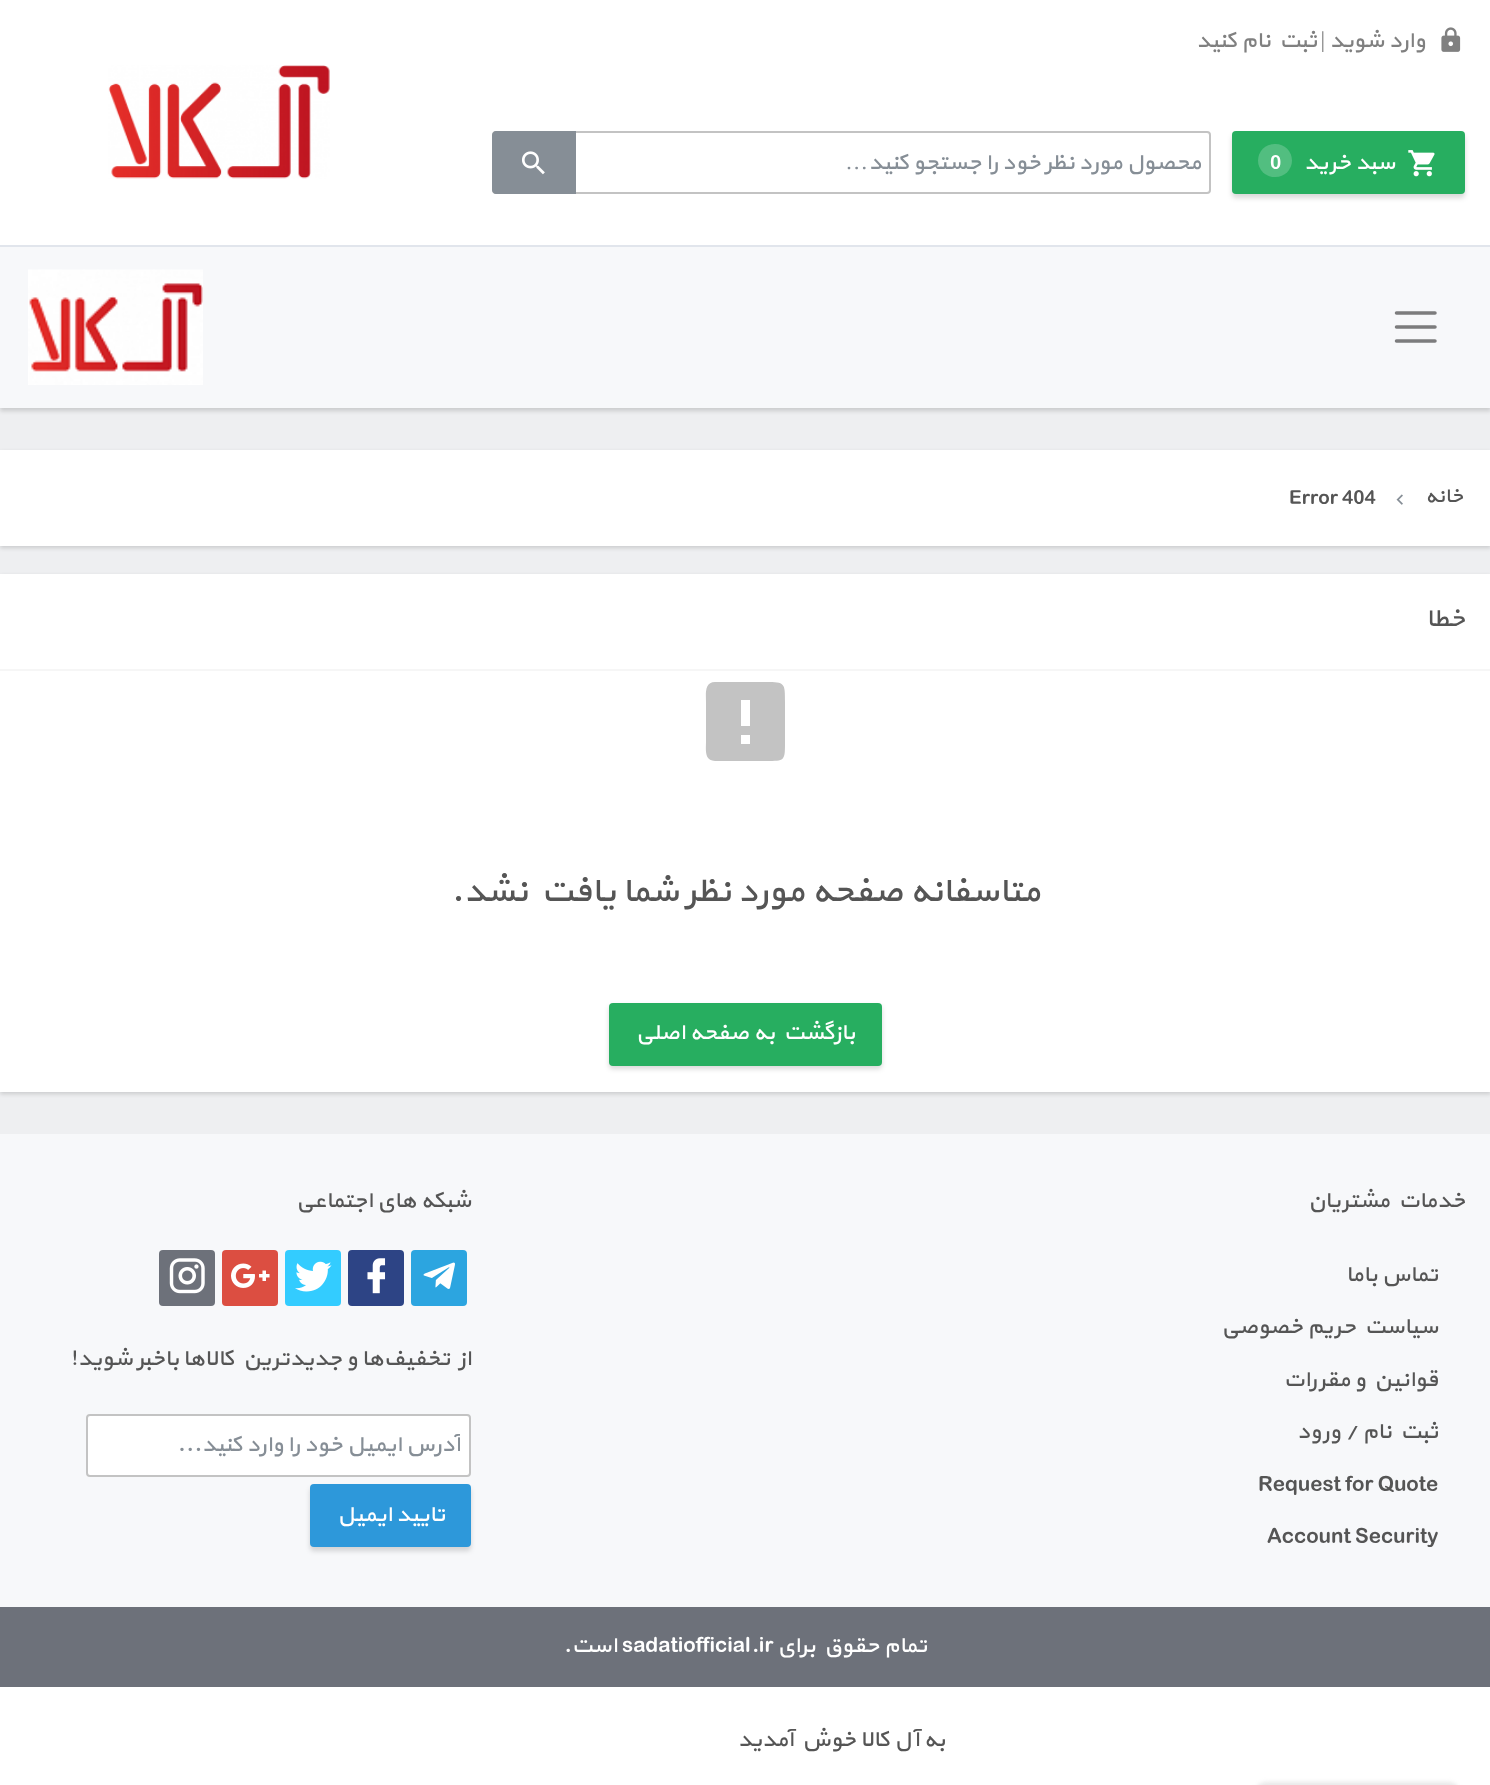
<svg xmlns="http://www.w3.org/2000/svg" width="1490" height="1785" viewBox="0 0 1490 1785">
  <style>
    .t1 { font: 22.75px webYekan; direction: rtl; fill: #808080; }
    .t2 { font: 22.75px Liberation Serif; direction: rtl; fill: #808080; }
    .t3 { font: 22.75px webYekan; direction: rtl; fill: #fff; }
    .t4 { font: 21px webYekan; fill: #fff; }
    .t5 { font: 22.75px webYekan; direction: rtl; fill: #868e96; }
    .t6 { font: 22.75px Liberation Serif; direction: rtl; fill: #868e96; }
    .t7 { font: 21px webYekan; direction: rtl; fill: #555; }
    .t8 { font: 21px webYekan; fill: #555; }
    .t9 { font: 26px webYekan; direction: rtl; fill: #555; }
    .t10 { font: 35px webYekan; direction: rtl; fill: #555; }
    .t11 { font: 22.75px webYekan; direction: rtl; fill: #555; }
    .t12 { font: 22.75px webYekan; fill: #555; }
    .t13 { font: 22.75px webYekan; fill: #fff; }
  </style>
  <defs>
    <clipPath id="clip1"><rect x="586" y="145" width="615" height="35"/></clipPath>
    <clipPath id="clip2"><rect x="96" y="1428" width="364" height="35"/></clipPath>
  </defs>
  <rect width="100%" height="100%" fill="#eeeff1"/>
  <rect x="0" y="0" width="1490" height="245" fill="#fff"/>
  <image x="1441" y="27" width="20" height="25" href="images/1.png"/>
  <text x="1425" y="47" class="t1">وارد شوید</text>
  <text x="1325" y="47" class="t2">|</text>
  <text x="1317" y="47" class="t1">ثبت نام کنید</text>
  <rect x="1232" y="135" width="233" height="63" rx="4" fill="#00000026" filter="blur(2.5px)"/>
  <rect x="1232" y="131" width="233" height="63" rx="4" fill="#27ae60"/>
  <image x="1408" y="150" width="27" height="27" href="images/2.png"/>
  <text x="1395" y="169" class="t3">سبد خرید</text>
  <rect x="1258" y="144" width="34" height="33" rx="16.5" fill="#52be80"/>
  <text x="1270" y="169" class="t4">0</text>
  <rect x="493" y="132" width="717" height="61" rx="3" fill="none" stroke="#c3c3c3" stroke-width="2"/>
  <g clip-path="url(#clip1)">
    <text x="1201" y="169" class="t5">محصول مورد نظر خود را جستجو کنید</text>
  </g>
  <text x="868" y="169" class="t6">…</text>
  <path d="M496 131H576V194H496C494 194 492 192 492 190V135C492 133 494 131 496 131Z" fill="#868e96"/>
  <image x="522" y="151" width="23" height="24" href="images/3.png"/>
  <image x="108" y="65" width="222" height="114" href="images/4.png"/>
  <rect x="0" y="249" width="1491" height="162" fill="#00000026" filter="blur(2px)"/>
  <rect x="0" y="247" width="1490" height="161" fill="#f7f8fa"/>
  <rect x="0" y="245" width="1490" height="2" fill="#e1e5ec"/>
  <path d="M1396.5 313H1435M1396.5 327H1435M1396.5 341H1435" fill="none" stroke="#7c7c7d" stroke-width="3.5" stroke-linecap="round"/>
  <image x="28" y="269" width="175" height="116" href="images/5.png"/>
  <rect x="0" y="452" width="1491" height="96" fill="#00000026" filter="blur(2px)"/>
  <rect x="0" y="450" width="1490" height="96" fill="#fff"/>
  <text x="1463" y="502" class="t7">خانه</text>
  <image x="1396" y="494" width="7" height="11" href="images/6.png"/>
  <text x="1289" y="504" class="t8">Error 404</text>
  <rect x="0" y="576" width="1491" height="518" fill="#00000026" filter="blur(2px)"/>
  <rect x="0" y="574" width="1490" height="518" fill="#fff"/>
  <rect x="0" y="669" width="1490" height="2" fill="#f6f6f6"/>
  <text x="1465" y="626" class="t9">خطا</text>
  <path d="M715 682H766C785 682 785 683 785 702V742C785 761 785 761 766 761H715C704 761 706 749 706 742V702C706 695 704 682 715 682ZM750 726V700H741V726ZM750 744V735H741V744Z" fill="#c3c3c3"/>
  <text x="1040" y="901" class="t10">متاسفانه صفحه مورد نظر شما یافت نشد.</text>
  <rect x="609" y="1006" width="273" height="63" rx="4" fill="#00000026" filter="blur(2.5px)"/>
  <rect x="609" y="1003" width="273" height="63" rx="4" fill="#27ae60"/>
  <text x="855" y="1039" class="t3">بازگشت به صفحه اصلی</text>
  <rect x="0" y="1134" width="1490" height="473" fill="#f7f8fa"/>
  <text x="1465" y="1207" class="t11">خدمات مشتریان</text>
  <text x="1438" y="1281" class="t11">تماس باما</text>
  <text x="1438" y="1333" class="t11">سیاست حریم خصوصی</text>
  <text x="1438" y="1386" class="t11">قوانین و مقررات</text>
  <text x="1438" y="1438" class="t11">ثبت نام / ورود</text>
  <text x="1258" y="1491" class="t12">Request for Quote</text>
  <text x="1267" y="1543" class="t12">Account Security</text>
  <text x="471" y="1207" class="t11">شبکه های اجتماعی</text>
  <rect x="411" y="1250" width="56" height="56" rx="4" fill="#2ca5e0"/>
  <image x="423" y="1262" width="32" height="27" href="images/7.png"/>
  <rect x="348" y="1250" width="56" height="56" rx="4" fill="#2d4485"/>
  <image x="367" y="1258" width="19" height="36" href="images/8.png"/>
  <rect x="285" y="1250" width="56" height="56" rx="4" fill="#3cf"/>
  <image x="295" y="1261" width="37" height="31" href="images/9.png"/>
  <rect x="222" y="1250" width="56" height="56" rx="4" fill="#dc4e41"/>
  <image x="231" y="1263" width="39" height="25" href="images/10.png"/>
  <rect x="159" y="1250" width="56" height="56" rx="4" fill="#6d717a"/>
  <image x="169" y="1258" width="36" height="36" href="images/11.png"/>
  <text x="471" y="1365" class="t11">از تخفیف‌ها و جدیدترین‌ کالاها باخبر شوید!</text>
  <rect x="87" y="1415" width="383" height="61" rx="3" fill="#fff" stroke="#c3c3c3" stroke-width="2"/>
  <g clip-path="url(#clip2)">
    <text x="460" y="1451" class="t5">آدرس ایمیل خود را وارد کنید...</text>
  </g>
  <rect x="310" y="1488" width="161" height="63" rx="4" fill="#00000026" filter="blur(2.5px)"/>
  <rect x="310" y="1484" width="161" height="63" rx="4" fill="#2d98da"/>
  <text x="445" y="1521" class="t3">تایید ایمیل</text>
  <rect x="0" y="1607" width="1490" height="80" fill="#6d717a"/>
  <text x="927" y="1652" class="t3">تمام حقوق برای</text>
  <text x="622" y="1652" class="t13">sadatiofficial.ir</text>
  <text x="617" y="1652" class="t3">است.</text>
  <rect x="0" y="1687" width="1490" height="98" fill="#fff"/>
  <text x="945" y="1746" class="t11">به آل کالا خوش آمدید</text>
  <rect x="1255" y="1782" width="205" height="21" rx="12" fill="#b2b2b24d" filter="blur(2px)"/>
</svg>
